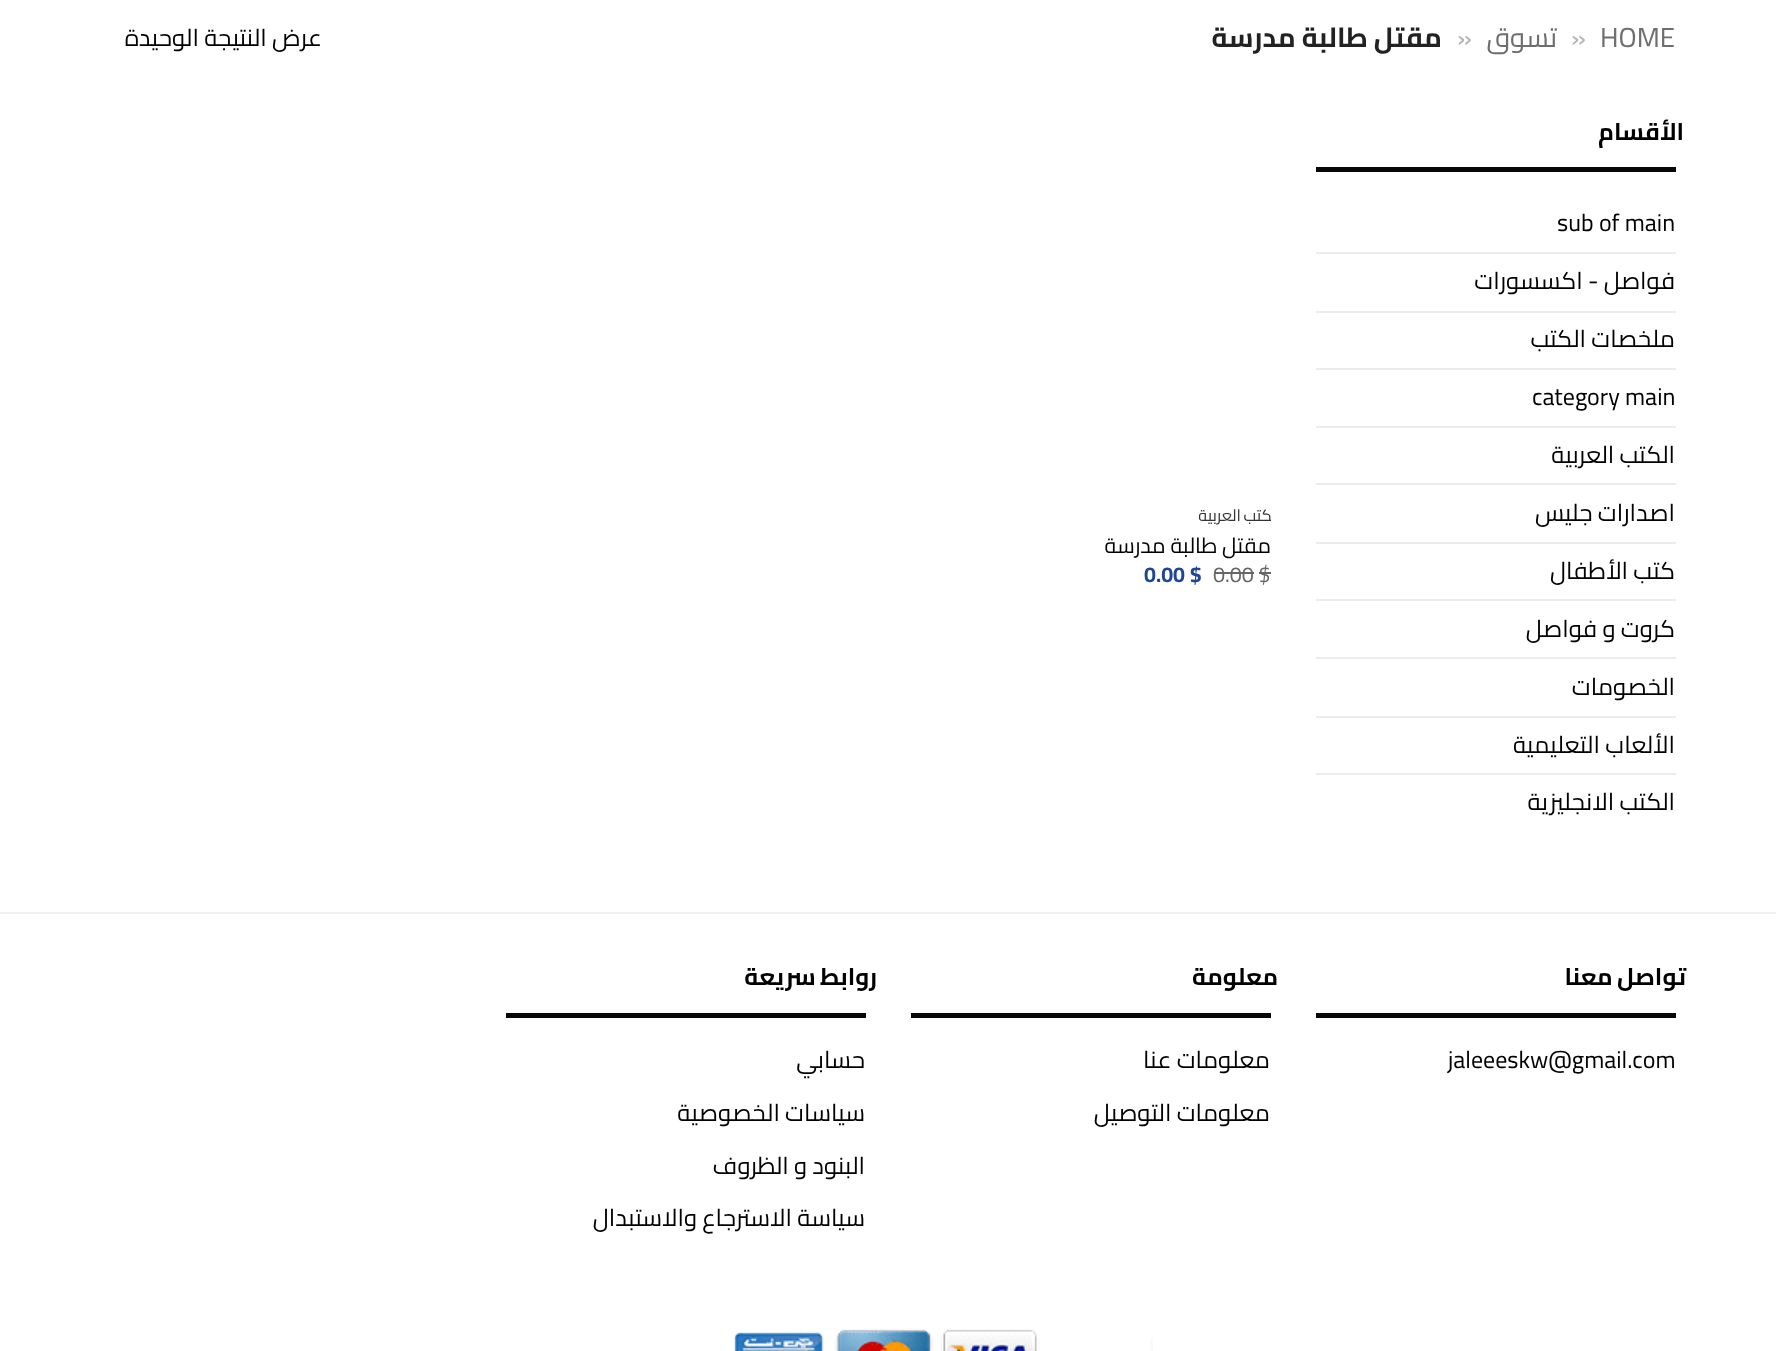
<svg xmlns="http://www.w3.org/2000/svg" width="1776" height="1351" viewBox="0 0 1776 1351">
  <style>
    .t1 { font: 27.5px Cairo; fill: #6e6e6e; }
    .t2 { font: 27.5px Cairo; fill: #b2b2b2; }
    .t3 { font: 27.5px Cairo; direction: rtl; fill: #6e6e6e; }
    .t4 { font: bold 27.5px Cairo; direction: rtl; fill: #222; }
    .t5 { font: 24px Cairo; direction: rtl; fill: #000; }
    .t6 { font: bold 24px Cairo; letter-spacing: 1.25px; direction: rtl; fill: #000; }
    .t7 { font: 24px Cairo; fill: #000; }
    .t8 { font: 16.25px Cairo; letter-spacing: 0.75px; direction: rtl; fill: #333; }
    .t9 { font: 21.5px Cairo; direction: rtl; fill: #000; }
    .t10 { font: 21.5px Cairo; fill: #666; }
    .t11 { font: bold 21.5px Cairo; fill: #1f4696; }
  </style>
  <defs>
    <clipPath id="clip1"><rect x="1001" y="506" width="270" height="19"/></clipPath>
  </defs>
  <rect width="100%" height="100%" fill="#fff"/>
  <text x="1600" y="47" class="t1">HOME</text>
  <text x="1571" y="47" class="t2">»</text>
  <text x="1557" y="47" class="t3">تسوق</text>
  <text x="1457" y="47" class="t2">»</text>
  <text x="1442" y="47" class="t4">مقتل طالبة مدرسة</text>
  <text x="322" y="46" class="t5">عرض النتيجة الوحيدة</text>
  <text x="1684" y="140" class="t6">الأقسام</text>
  <rect x="1316" y="167" width="360" height="5" fill="#070707"/>
  <text x="1557" y="231" class="t7">sub of main</text>
  <rect x="1316" y="252" width="360" height="2" fill="#ececec"/>
  <text x="1675" y="289" class="t5">فواصل - اكسسورات</text>
  <rect x="1316" y="311" width="360" height="2" fill="#ececec"/>
  <text x="1675" y="347" class="t5">ملخصات الكتب</text>
  <rect x="1316" y="368" width="360" height="2" fill="#ececec"/>
  <text x="1532" y="405" class="t7">category main</text>
  <rect x="1316" y="426" width="360" height="2" fill="#ececec"/>
  <text x="1675" y="463" class="t5">الكتب العربية</text>
  <rect x="1316" y="483" width="360" height="2" fill="#ececec"/>
  <text x="1675" y="521" class="t5">اصدارات جليس</text>
  <rect x="1316" y="542" width="360" height="2" fill="#ececec"/>
  <text x="1675" y="579" class="t5">كتب الأطفال</text>
  <rect x="1316" y="599" width="360" height="2" fill="#ececec"/>
  <text x="1675" y="637" class="t5">كروت و فواصل</text>
  <rect x="1316" y="657" width="360" height="2" fill="#ececec"/>
  <text x="1675" y="695" class="t5">الخصومات</text>
  <rect x="1316" y="716" width="360" height="2" fill="#ececec"/>
  <text x="1675" y="753" class="t5">الألعاب التعليمية</text>
  <rect x="1316" y="773" width="360" height="2" fill="#ececec"/>
  <text x="1675" y="810" class="t5">الكتب الانجليزية</text>
  <g clip-path="url(#clip1)">
    <text x="1281" y="521" word-spacing="-1" class="t8">الكتب العربية</text>
  </g>
  <text x="1271" y="553" class="t9">مقتل طالبة مدرسة</text>
  <text x="1213" y="582" class="t10">0.00 $</text>
  <rect x="1214" y="572" width="40" height="2" fill="#666"/>
  <rect x="1259" y="572" width="12" height="2" fill="#666"/>
  <text x="1144" y="582" class="t11">0.00 $</text>
  <rect x="0" y="912" width="1776" height="2" fill="#f2f2f2"/>
  <text x="1686" y="985" word-spacing="-1" class="t6">تواصل معنا</text>
  <rect x="1316" y="1013" width="360" height="5" fill="#070707"/>
  <text x="1448" y="1068" class="t7">jaleeeskw@gmail.com</text>
  <text x="1278" y="985" class="t6">معلومة</text>
  <rect x="911" y="1013" width="360" height="5" fill="#070707"/>
  <text x="1270" y="1068" class="t5">معلومات عنا</text>
  <text x="1270" y="1121" class="t5">معلومات التوصيل</text>
  <text x="877" y="985" word-spacing="-1" class="t6">روابط سريعة</text>
  <rect x="506" y="1013" width="360" height="5" fill="#070707"/>
  <text x="865" y="1068" class="t5">حسابي</text>
  <text x="865" y="1121" class="t5">سياسات الخصوصية</text>
  <text x="865" y="1174" class="t5">البنود و الظروف</text>
  <text x="865" y="1226" class="t5">سياسة الاسترجاع والاستبدال</text>
  <image x="734" y="1329" width="419" height="22" href="images/1.png"/>
</svg>
